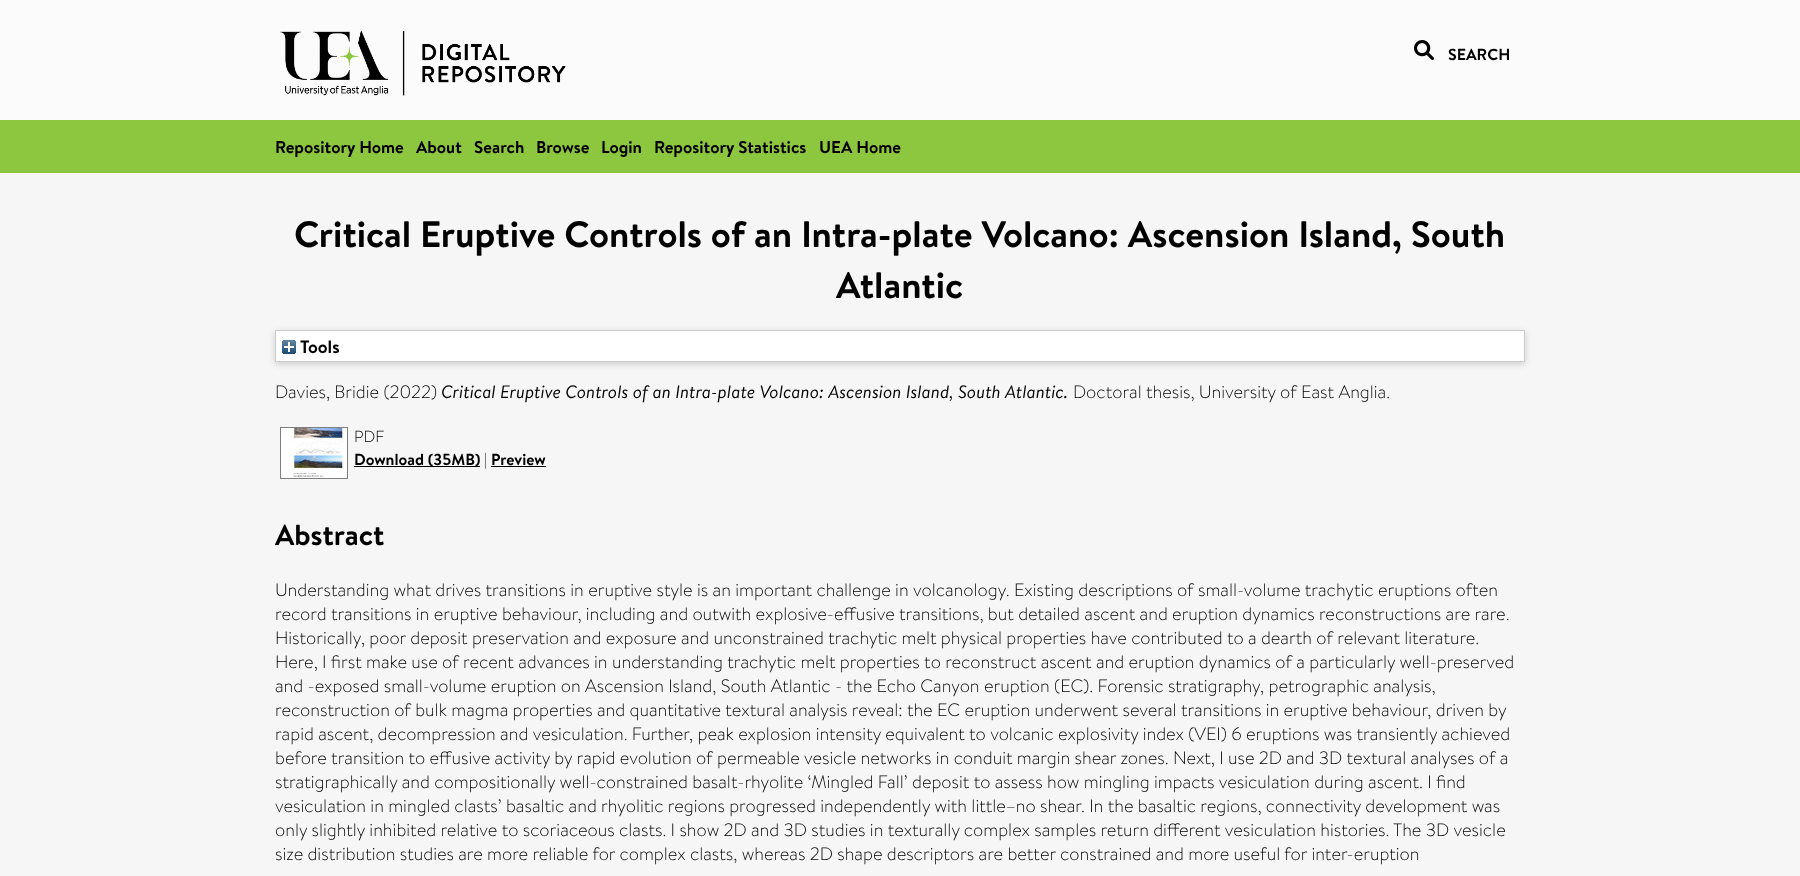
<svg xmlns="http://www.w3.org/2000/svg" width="1800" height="876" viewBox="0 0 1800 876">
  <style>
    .t1 { font: bold 16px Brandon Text; fill: #000; }
    .t2 { font: bold 17px Brandon Text; fill: #000; }
    .t3 { font: bold 36.8px Brandon Text; fill: #000; }
    .t4 { font: bold 18px Brandon Text; fill: #000; }
    .t5 { font: 300 18px Brandon Text; fill: #000; }
    .t6 { font: italic 18px Brandon Text; fill: #000; }
    .t7 { font: 300 16px Brandon Text; fill: #000; }
    .t8 { font: bold 29px Brandon Text; fill: #000; }
  </style>
  <rect width="100%" height="100%" fill="#f6f6f6"/>
  <rect x="0" y="0" width="1800" height="120" fill="#fbfbfb"/>
  <image x="280" y="30" width="286" height="66" href="images/1.png"/>
  <image x="1414" y="40" width="20" height="20" href="images/2.png"/>
  <text x="1448" y="60" class="t1">SEARCH</text>
  <rect x="0" y="120" width="1800" height="53" fill="#8dc63f"/>
  <text x="275" y="153" class="t2">Repository Home</text>
  <text x="416" y="153" class="t2">About</text>
  <text x="474" y="153" class="t2">Search</text>
  <text x="536" y="153" class="t2">Browse</text>
  <text x="601" y="153" class="t2">Login</text>
  <text x="654" y="153" class="t2">Repository Statistics</text>
  <text x="819" y="153" class="t2">UEA Home</text>
  <text x="294" y="247" class="t3">Critical Eruptive Controls of an Intra-plate Volcano: Ascension Island, South</text>
  <text x="836" y="298" class="t3">Atlantic</text>
  <rect x="275" y="332" width="1250" height="32" fill="#6464644d" filter="blur(3px)"/>
  <rect x="275.5" y="330.5" width="1249" height="31" fill="#fff" stroke="#ccc"/>
  <image x="282" y="340" width="14" height="14" href="images/3.png"/>
  <text x="300" y="353" class="t4">Tools</text>
  <text x="275" y="398" class="t5">Davies, Bridie (2022)</text>
  <text x="441" y="398" class="t6">Critical Eruptive Controls of an Intra-plate Volcano: Ascension Island, South Atlantic.</text>
  <text x="1073" y="398" class="t5">Doctoral thesis, University of East Anglia.</text>
  <image x="280" y="427" width="68" height="52" href="images/4.png"/>
  <text x="354" y="442" class="t7">PDF</text>
  <rect x="354" y="466" width="126" height="1" fill="#000"/>
  <text x="354" y="465" class="t1">Download (35MB)</text>
  <text x="484" y="465" class="t7">|</text>
  <text x="491" y="465" class="t1">Preview</text>
  <rect x="491" y="466" width="55" height="1" fill="#000"/>
  <text x="275" y="545" class="t8">Abstract</text>
  <text x="275" y="596" class="t5">Understanding what drives transitions in eruptive style is an important challenge in volcanology. Existing descriptions of small-volume trachytic eruptions often</text>
  <text x="275" y="620" class="t5">record transitions in eruptive behaviour, including and outwith explosive-effusive transitions, but detailed ascent and eruption dynamics reconstructions are rare.</text>
  <text x="275" y="644" class="t5">Historically, poor deposit preservation and exposure and unconstrained trachytic melt physical properties have contributed to a dearth of relevant literature.</text>
  <text x="275" y="668" class="t5">Here, I first make use of recent advances in understanding trachytic melt properties to reconstruct ascent and eruption dynamics of a particularly well-preserved</text>
  <text x="275" y="692" class="t5">and -exposed small-volume eruption on Ascension Island, South Atlantic - the Echo Canyon eruption (EC). Forensic stratigraphy, petrographic analysis,</text>
  <text x="275" y="716" class="t5">reconstruction of bulk magma properties and quantitative textural analysis reveal: the EC eruption underwent several transitions in eruptive behaviour, driven by</text>
  <text x="275" y="740" class="t5">rapid ascent, decompression and vesiculation. Further, peak explosion intensity equivalent to volcanic explosivity index (VEI) 6 eruptions was transiently achieved</text>
  <text x="275" y="764" class="t5">before transition to effusive activity by rapid evolution of permeable vesicle networks in conduit margin shear zones. Next, I use 2D and 3D textural analyses of a</text>
  <text x="275" y="788" class="t5">stratigraphically and compositionally well-constrained basalt-rhyolite ‘Mingled Fall’ deposit to assess how mingling impacts vesiculation during ascent. I find</text>
  <text x="275" y="812" class="t5">vesiculation in mingled clasts’ basaltic and rhyolitic regions progressed independently with little–no shear. In the basaltic regions, connectivity development was</text>
  <text x="275" y="836" class="t5">only slightly inhibited relative to scoriaceous clasts. I show 2D and 3D studies in texturally complex samples return different vesiculation histories. The 3D vesicle</text>
  <text x="275" y="860" class="t5">size distribution studies are more reliable for complex clasts, whereas 2D shape descriptors are better constrained and more useful for inter-eruption</text>
</svg>
